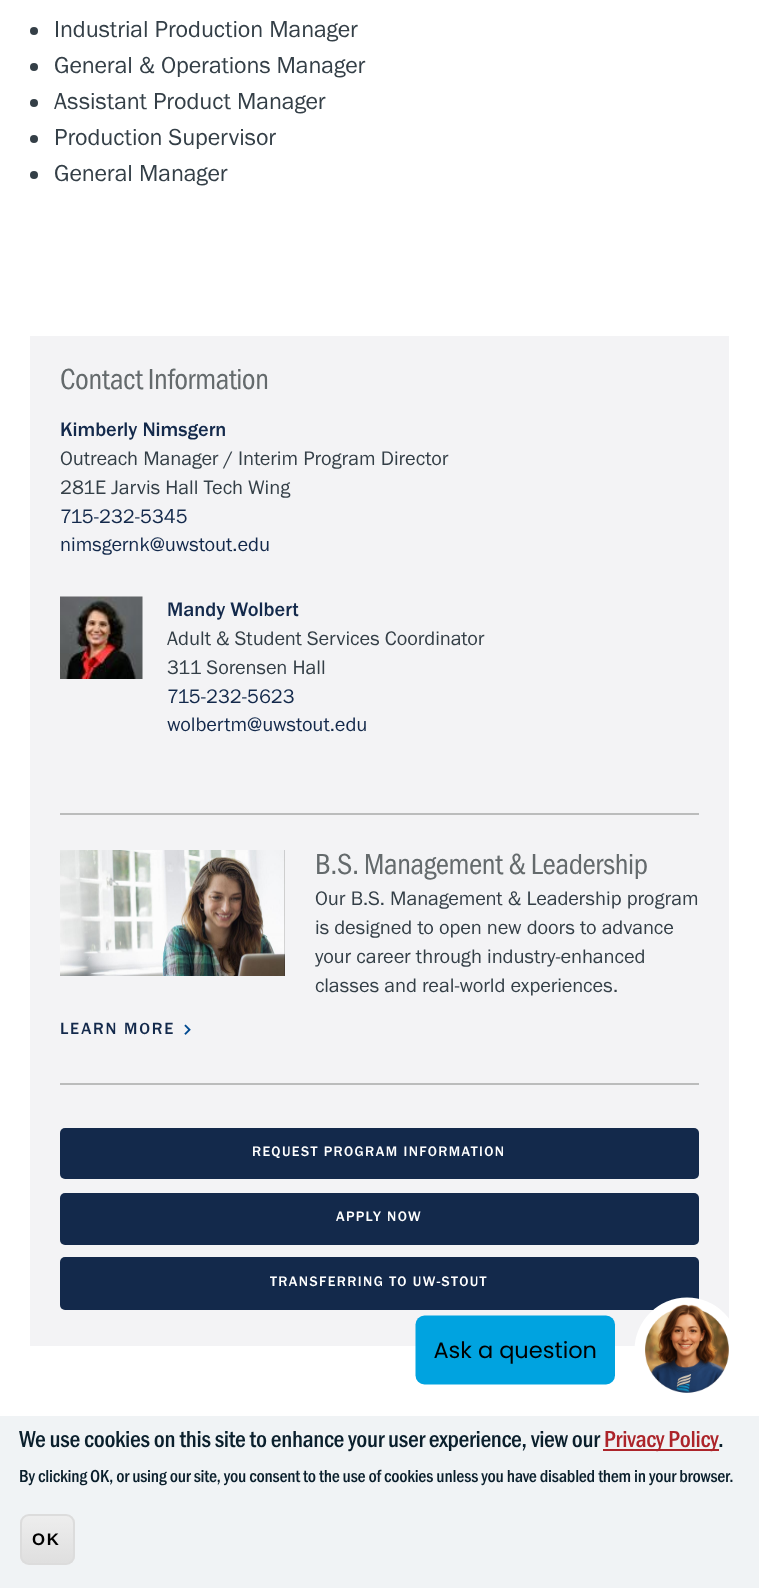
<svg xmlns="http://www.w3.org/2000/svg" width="759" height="1588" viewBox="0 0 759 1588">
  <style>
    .t1 { font: 24px 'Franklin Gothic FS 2'; fill: #343f47; }
    .t2 { font: 30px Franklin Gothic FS; letter-spacing: -0.4px; fill: #646a6c; }
    .t3 { font: 500 20.4px Franklin Gothic FS; fill: #13294b; }
    .t4 { font: 20.4px 'Franklin Gothic FS 2'; fill: #343f47; }
    .t5 { font: 20.4px 'Franklin Gothic FS 2'; fill: #13294b; }
    .t6 { font: 500 16.75px Franklin Gothic FS; letter-spacing: 1.75px; fill: #13294b; }
    .t7 { font: 500 14.25px Franklin Gothic FS; letter-spacing: 1.4px; fill: #fff; }
    .t8 { font: 500 24px 'Franklin Gothic FS 2'; letter-spacing: -0.3px; fill: #0a1f2c; }
    .t9 { font: 500 24px 'Franklin Gothic FS 2'; letter-spacing: -0.3px; fill: #ac242a; }
    .t10 { font: 500 18px 'Franklin Gothic FS 2'; letter-spacing: -0.22px; fill: #0a1f2c; }
    .t11 { font: bold 16.75px Liberation Sans; letter-spacing: 1.75px; fill: #000; }
  </style>
  <defs>
    <clipPath id="clip1"><rect x="20" y="1514" width="55" height="51" rx="9"/></clipPath>
    <linearGradient id="g1" gradientUnits="userSpaceOnUse" x1="47" y1="1515" x2="47" y2="1563"><stop offset="0.05" stop-color="#ededed"/><stop offset="1" stop-color="#dfdfdf"/></linearGradient>
  </defs>
  <rect width="100%" height="100%" fill="#fff"/>
  <circle cx="34" cy="31" r="4" fill="#343f47"/>
  <text x="54" y="37" class="t1">Industrial Production Manager</text>
  <circle cx="34" cy="67" r="4" fill="#343f47"/>
  <text x="54" y="73" class="t1">General &amp; Operations Manager</text>
  <circle cx="34" cy="103" r="4" fill="#343f47"/>
  <text x="54" y="109" class="t1">Assistant Product Manager</text>
  <circle cx="34" cy="139" r="4" fill="#343f47"/>
  <text x="54" y="145" class="t1">Production Supervisor</text>
  <circle cx="34" cy="175" r="4" fill="#343f47"/>
  <text x="54" y="181" class="t1">General Manager</text>
  <rect x="30" y="336" width="699" height="1010" fill="#f3f3f5"/>
  <rect x="60" y="813" width="639" height="2" fill="#bbbcbc"/>
  <text x="60" y="389" class="t2">Contact Information</text>
  <text x="60" y="436" class="t3">Kimberly Nimsgern</text>
  <text x="60" y="465" class="t4">Outreach Manager / Interim Program Director</text>
  <text x="60" y="494" class="t4">281E Jarvis Hall Tech Wing</text>
  <text x="60" y="523" class="t5">715-232-5345</text>
  <text x="60" y="551" class="t5">nimsgernk@uwstout.edu</text>
  <image x="60" y="596" width="83" height="83" href="images/1.png"/>
  <text x="167" y="616" class="t3">Mandy Wolbert</text>
  <text x="167" y="645" class="t4">Adult &amp; Student Services Coordinator</text>
  <text x="167" y="674" class="t4">311 Sorensen Hall</text>
  <text x="167" y="703" class="t5">715-232-5623</text>
  <text x="167" y="731" class="t5">wolbertm@uwstout.edu</text>
  <rect x="60" y="1083" width="639" height="2" fill="#bbbcbc"/>
  <image x="60" y="850" width="225" height="126" href="images/2.png"/>
  <text x="315" y="874" class="t2">B.S. Management &amp; Leadership</text>
  <text x="315" y="905" class="t4">Our B.S. Management &amp; Leadership program</text>
  <text x="315" y="934" class="t4">is designed to open new doors to advance</text>
  <text x="315" y="963" class="t4">your career through industry-enhanced</text>
  <text x="315" y="992" class="t4">classes and real-world experiences.</text>
  <text x="60" y="1034" class="t6">LEARN MORE</text>
  <image x="184" y="1024" width="7" height="11" href="images/3.png"/>
  <rect x="60" y="1128" width="639" height="51" rx="5" fill="#13294b"/>
  <text x="252" y="1156" class="t7">REQUEST PROGRAM INFORMATION</text>
  <rect x="60" y="1193" width="639" height="52" rx="5" fill="#13294b"/>
  <text x="336" y="1221" class="t7">APPLY NOW</text>
  <rect x="60" y="1257" width="639" height="53" rx="5" fill="#13294b"/>
  <text x="270" y="1286" class="t7">TRANSFERRING TO UW-STOUT</text>
  <image x="415" y="1297" width="314" height="96" href="images/4.png"/>
  <rect x="0" y="1416" width="759" height="172" fill="#f0f3f5"/>
  <text x="19" y="1447" class="t8">We use cookies on this site to enhance your user experience, view our</text>
  <rect x="603" y="1449" width="116" height="2" fill="#ac242a"/>
  <text x="604" y="1447" class="t9">Privacy Policy</text>
  <text x="718" y="1447" class="t8">.</text>
  <text x="19" y="1482" class="t10">By clicking OK, or using our site, you consent to the use of cookies unless you have disabled them in your browser.</text>
  <g clip-path="url(#clip1)">
    <rect x="20" y="1515" width="55" height="48" fill="url(#g1)"/>
  </g>
  <rect x="21" y="1515" width="53" height="49" rx="8" fill="none" stroke="#dcdcdc" stroke-width="2"/>
  <text x="32" y="1545" class="t11">OK</text>
</svg>
